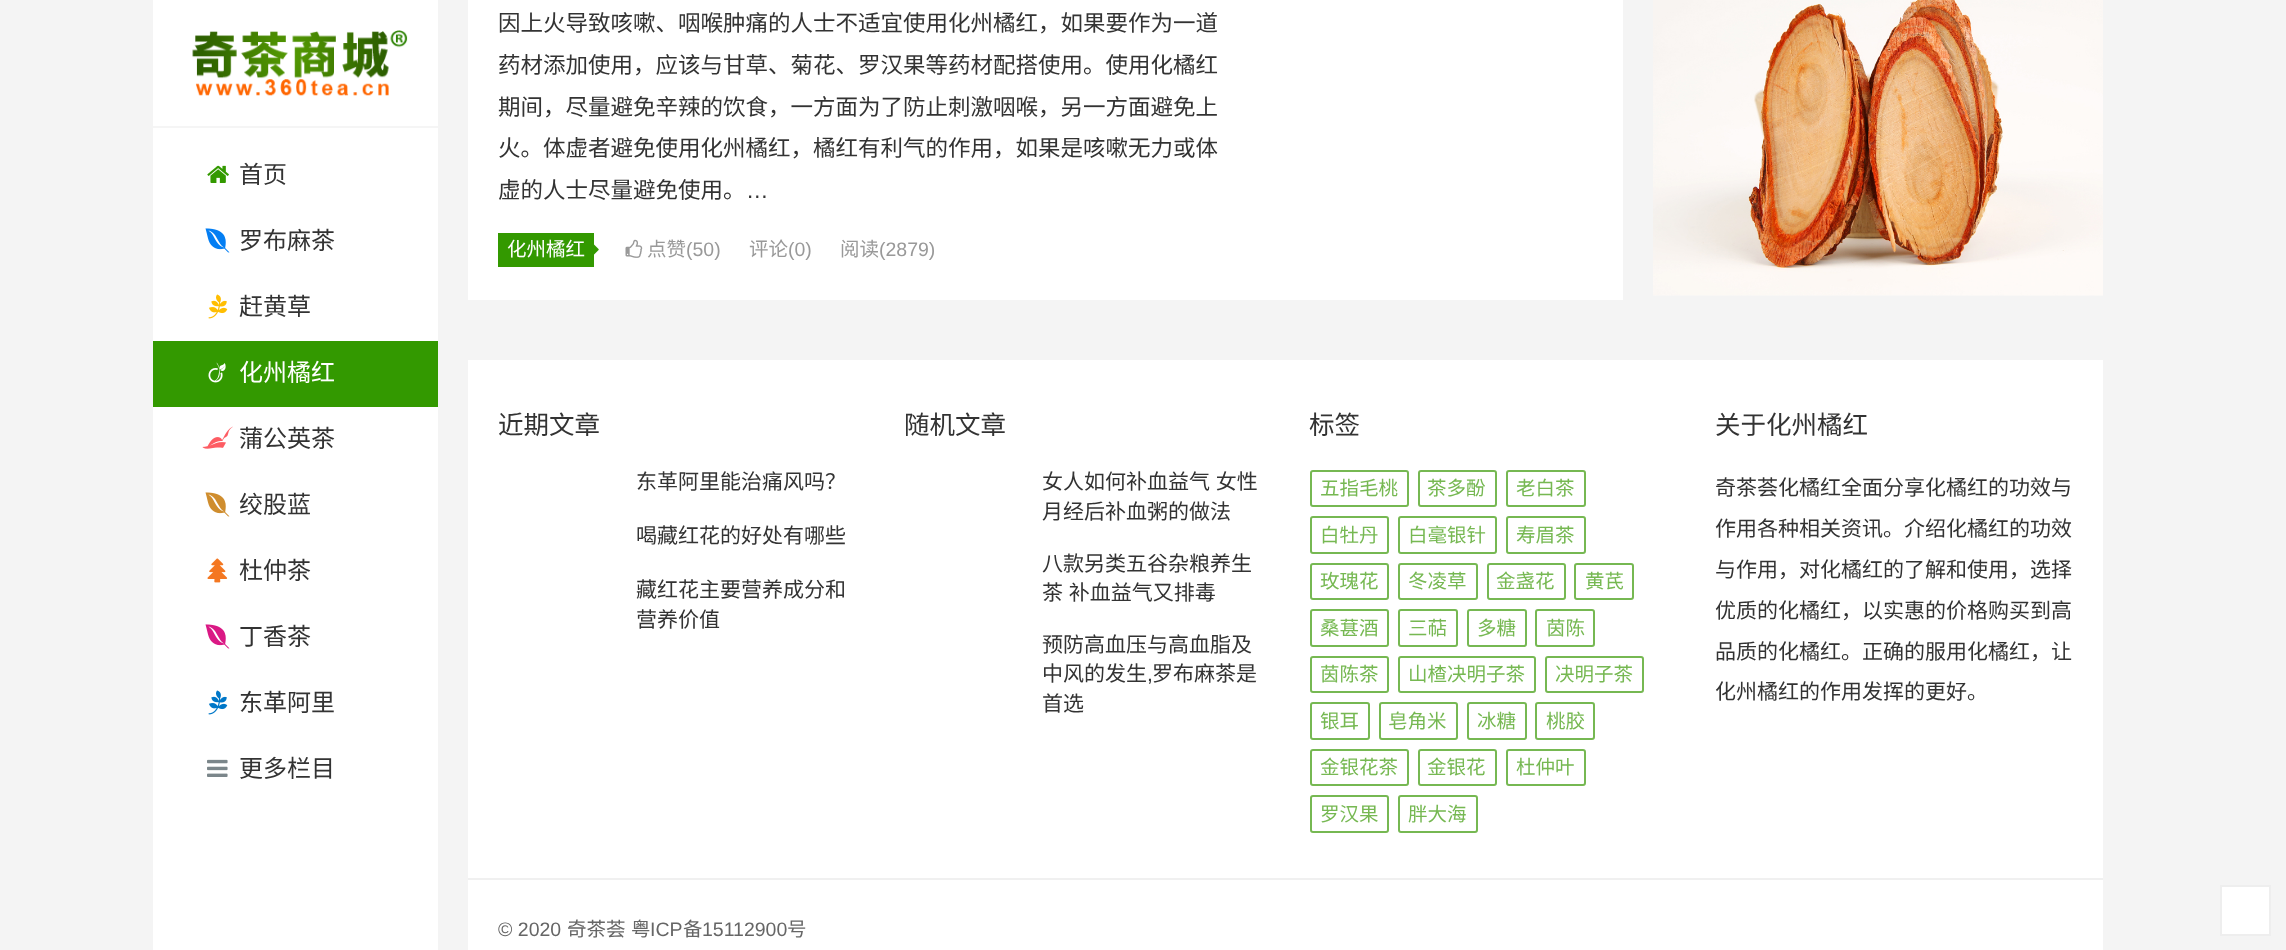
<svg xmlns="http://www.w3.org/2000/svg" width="2286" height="950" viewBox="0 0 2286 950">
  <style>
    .t1 { font: 22.5px Noto Sans CJK SC; fill: #333; }
    .t2 { font: 22.5px Liberation Sans; fill: #333; }
    .t3 { font: 19.5px Noto Sans CJK SC; fill: #fff; }
    .t4 { font: 19.5px Noto Sans CJK SC; fill: #999; }
    .t5 { font: 19.5px Liberation Sans; fill: #999; }
    .t6 { font: 24px Noto Sans CJK SC; fill: #333; }
    .t7 { font: 24px Noto Sans CJK SC; fill: #fff; }
    .t8 { font: 25.5px Noto Sans CJK SC; fill: #333; }
    .t9 { font: 21px Noto Sans CJK SC; fill: #333; }
    .t10 { font: 21px Liberation Sans; fill: #333; }
    .t11 { font: 19.5px Noto Sans CJK SC; fill: #76b852; }
    .t12 { font: 19.5px Liberation Sans; fill: #666; }
    .t13 { font: 19.5px Noto Sans CJK SC; fill: #666; }
  </style>
  <rect width="100%" height="100%" fill="#f4f4f4"/>
  <rect x="468" y="0" width="1155" height="300" fill="#fff"/>
  <text x="498" y="31" class="t1">因上火导致咳嗽、咽喉肿痛的人士不适宜使用化州橘红，如果要作为一道</text>
  <text x="498" y="73" class="t1">药材添加使用，应该与甘草、菊花、罗汉果等药材配搭使用。使用化橘红</text>
  <text x="498" y="115" class="t1">期间，尽量避免辛辣的饮食，一方面为了防止刺激咽喉，另一方面避免上</text>
  <text x="498" y="156" class="t1">火。体虚者避免使用化州橘红，橘红有利气的作用，如果是咳嗽无力或体</text>
  <text x="498" y="198" class="t1">虚的人士尽量避免使用。</text>
  <text x="746" y="198" class="t2">…</text>
  <rect x="498" y="233" width="96" height="34" fill="#390"/>
  <text x="507" y="256" class="t3">化州橘红</text>
  <image x="594" y="244" width="5" height="11" href="images/1.png"/>
  <image x="625" y="239" width="18" height="19" href="images/2.png"/>
  <text x="647" y="256" class="t4">点赞</text>
  <text x="686" y="256" class="t5">(50)</text>
  <text x="749" y="256" class="t4">评论</text>
  <text x="788" y="256" class="t5">(0)</text>
  <text x="840" y="256" class="t4">阅读</text>
  <text x="879" y="256" class="t5">(2879)</text>
  <image x="1653" y="0" width="450" height="296" href="images/3.png"/>
  <rect x="153" y="0" width="285" height="950" fill="#fff"/>
  <rect x="153" y="126" width="285" height="2" fill="#f5f5f5"/>
  <image x="192" y="30" width="216" height="66" href="images/4.png"/>
  <image x="207" y="165" width="22" height="18" href="images/5.png"/>
  <text x="239" y="183" class="t6">首页</text>
  <image x="205" y="228" width="25" height="25" href="images/6.png"/>
  <text x="239" y="249" class="t6">罗布麻茶</text>
  <image x="208" y="294" width="20" height="25" href="images/7.png"/>
  <text x="239" y="315" class="t6">赶黄草</text>
  <rect x="153" y="341" width="285" height="66" fill="#390"/>
  <image x="208" y="362" width="18" height="21" href="images/8.png"/>
  <text x="239" y="381" class="t7">化州橘红</text>
  <image x="202" y="426" width="31" height="23" href="images/9.png"/>
  <text x="239" y="447" class="t6">蒲公英茶</text>
  <image x="205" y="492" width="25" height="25" href="images/10.png"/>
  <text x="239" y="513" class="t6">绞股蓝</text>
  <image x="207" y="558" width="21" height="25" href="images/11.png"/>
  <text x="239" y="579" class="t6">杜仲茶</text>
  <image x="205" y="624" width="25" height="25" href="images/12.png"/>
  <text x="239" y="645" class="t6">丁香茶</text>
  <image x="208" y="690" width="20" height="25" href="images/13.png"/>
  <text x="239" y="711" class="t6">东革阿里</text>
  <image x="207" y="759" width="21" height="18" href="images/14.png"/>
  <text x="239" y="777" class="t6">更多栏目</text>
  <rect x="468" y="360" width="1635" height="590" fill="#fff"/>
  <text x="498" y="434" class="t8">近期文章</text>
  <text x="636" y="489" class="t9">东革阿里能治痛风吗？</text>
  <text x="636" y="543" class="t9">喝藏红花的好处有哪些</text>
  <text x="636" y="597" class="t9">藏红花主要营养成分和</text>
  <text x="636" y="627" class="t9">营养价值</text>
  <text x="904" y="434" class="t8">随机文章</text>
  <text x="1042" y="489" word-spacing="1" class="t9">女人如何补血益气 女性</text>
  <text x="1042" y="519" class="t9">月经后补血粥的做法</text>
  <text x="1042" y="571" class="t9">八款另类五谷杂粮养生</text>
  <text x="1042" y="600" word-spacing="1" class="t9">茶 补血益气又排毒</text>
  <text x="1042" y="652" class="t9">预防高血压与高血脂及</text>
  <text x="1042" y="681" class="t9">中风的发生</text>
  <text x="1147" y="681" class="t10">,</text>
  <text x="1152" y="681" class="t9">罗布麻茶是</text>
  <text x="1042" y="711" class="t9">首选</text>
  <text x="1309" y="434" class="t8">标签</text>
  <rect x="1311" y="471" width="97" height="35" rx="2" fill="none" stroke="#76b852" stroke-width="2"/>
  <text x="1320" y="495" class="t11">五指毛桃</text>
  <rect x="1419" y="471" width="77" height="35" rx="2" fill="none" stroke="#76b852" stroke-width="2"/>
  <text x="1427" y="495" class="t11">茶多酚</text>
  <rect x="1507" y="471" width="78" height="35" rx="2" fill="none" stroke="#76b852" stroke-width="2"/>
  <text x="1516" y="495" class="t11">老白茶</text>
  <rect x="1311" y="517" width="77" height="36" rx="2" fill="none" stroke="#76b852" stroke-width="2"/>
  <text x="1320" y="542" class="t11">白牡丹</text>
  <rect x="1399" y="517" width="97" height="36" rx="2" fill="none" stroke="#76b852" stroke-width="2"/>
  <text x="1408" y="542" class="t11">白毫银针</text>
  <rect x="1507" y="517" width="78" height="36" rx="2" fill="none" stroke="#76b852" stroke-width="2"/>
  <text x="1516" y="542" class="t11">寿眉茶</text>
  <rect x="1311" y="564" width="77" height="35" rx="2" fill="none" stroke="#76b852" stroke-width="2"/>
  <text x="1320" y="588" class="t11">玫瑰花</text>
  <rect x="1399" y="564" width="78" height="35" rx="2" fill="none" stroke="#76b852" stroke-width="2"/>
  <text x="1408" y="588" class="t11">冬凌草</text>
  <rect x="1488" y="564" width="77" height="35" rx="2" fill="none" stroke="#76b852" stroke-width="2"/>
  <text x="1496" y="588" class="t11">金盏花</text>
  <rect x="1575" y="564" width="58" height="35" rx="2" fill="none" stroke="#76b852" stroke-width="2"/>
  <text x="1585" y="588" class="t11">黄芪</text>
  <rect x="1311" y="610" width="77" height="36" rx="2" fill="none" stroke="#76b852" stroke-width="2"/>
  <text x="1320" y="635" class="t11">桑葚酒</text>
  <rect x="1399" y="610" width="58" height="36" rx="2" fill="none" stroke="#76b852" stroke-width="2"/>
  <text x="1408" y="635" class="t11">三萜</text>
  <rect x="1468" y="610" width="58" height="36" rx="2" fill="none" stroke="#76b852" stroke-width="2"/>
  <text x="1477" y="635" class="t11">多糖</text>
  <rect x="1536" y="610" width="58" height="36" rx="2" fill="none" stroke="#76b852" stroke-width="2"/>
  <text x="1546" y="635" class="t11">茵陈</text>
  <rect x="1311" y="657" width="77" height="35" rx="2" fill="none" stroke="#76b852" stroke-width="2"/>
  <text x="1320" y="681" class="t11">茵陈茶</text>
  <rect x="1399" y="657" width="136" height="35" rx="2" fill="none" stroke="#76b852" stroke-width="2"/>
  <text x="1408" y="681" class="t11">山楂决明子茶</text>
  <rect x="1546" y="657" width="97" height="35" rx="2" fill="none" stroke="#76b852" stroke-width="2"/>
  <text x="1555" y="681" class="t11">决明子茶</text>
  <rect x="1311" y="703" width="58" height="36" rx="2" fill="none" stroke="#76b852" stroke-width="2"/>
  <text x="1320" y="728" class="t11">银耳</text>
  <rect x="1380" y="703" width="77" height="36" rx="2" fill="none" stroke="#76b852" stroke-width="2"/>
  <text x="1388" y="728" class="t11">皂角米</text>
  <rect x="1468" y="703" width="58" height="36" rx="2" fill="none" stroke="#76b852" stroke-width="2"/>
  <text x="1477" y="728" class="t11">冰糖</text>
  <rect x="1536" y="703" width="58" height="36" rx="2" fill="none" stroke="#76b852" stroke-width="2"/>
  <text x="1546" y="728" class="t11">桃胶</text>
  <rect x="1311" y="750" width="97" height="35" rx="2" fill="none" stroke="#76b852" stroke-width="2"/>
  <text x="1320" y="774" class="t11">金银花茶</text>
  <rect x="1419" y="750" width="77" height="35" rx="2" fill="none" stroke="#76b852" stroke-width="2"/>
  <text x="1427" y="774" class="t11">金银花</text>
  <rect x="1507" y="750" width="78" height="35" rx="2" fill="none" stroke="#76b852" stroke-width="2"/>
  <text x="1516" y="774" class="t11">杜仲叶</text>
  <rect x="1311" y="796" width="77" height="36" rx="2" fill="none" stroke="#76b852" stroke-width="2"/>
  <text x="1320" y="821" class="t11">罗汉果</text>
  <rect x="1399" y="796" width="78" height="36" rx="2" fill="none" stroke="#76b852" stroke-width="2"/>
  <text x="1408" y="821" class="t11">胖大海</text>
  <text x="1715" y="434" class="t8">关于化州橘红</text>
  <text x="1715" y="495" class="t9">奇茶荟化橘红全面分享化橘红的功效与</text>
  <text x="1715" y="536" class="t9">作用各种相关资讯。介绍化橘红的功效</text>
  <text x="1715" y="577" class="t9">与作用，对化橘红的了解和使用，选择</text>
  <text x="1715" y="618" class="t9">优质的化橘红，以实惠的价格购买到高</text>
  <text x="1715" y="659" class="t9">品质的化橘红。正确的服用化橘红，让</text>
  <text x="1715" y="699" class="t9">化州橘红的作用发挥的更好。</text>
  <rect x="468" y="878" width="1635" height="2" fill="#f0f0f0"/>
  <text x="498" y="936" class="t12">© 2020</text>
  <text x="567" y="936" class="t13">奇茶荟</text>
  <text x="631" y="936" class="t13">粤</text>
  <text x="650" y="936" class="t12">ICP</text>
  <text x="683" y="936" class="t13">备</text>
  <text x="702" y="936" class="t12">15112900</text>
  <text x="787" y="936" class="t13">号</text>
  <rect x="2221" y="886" width="49" height="49" fill="#fff" stroke="#eee" stroke-width="2"/>
</svg>
